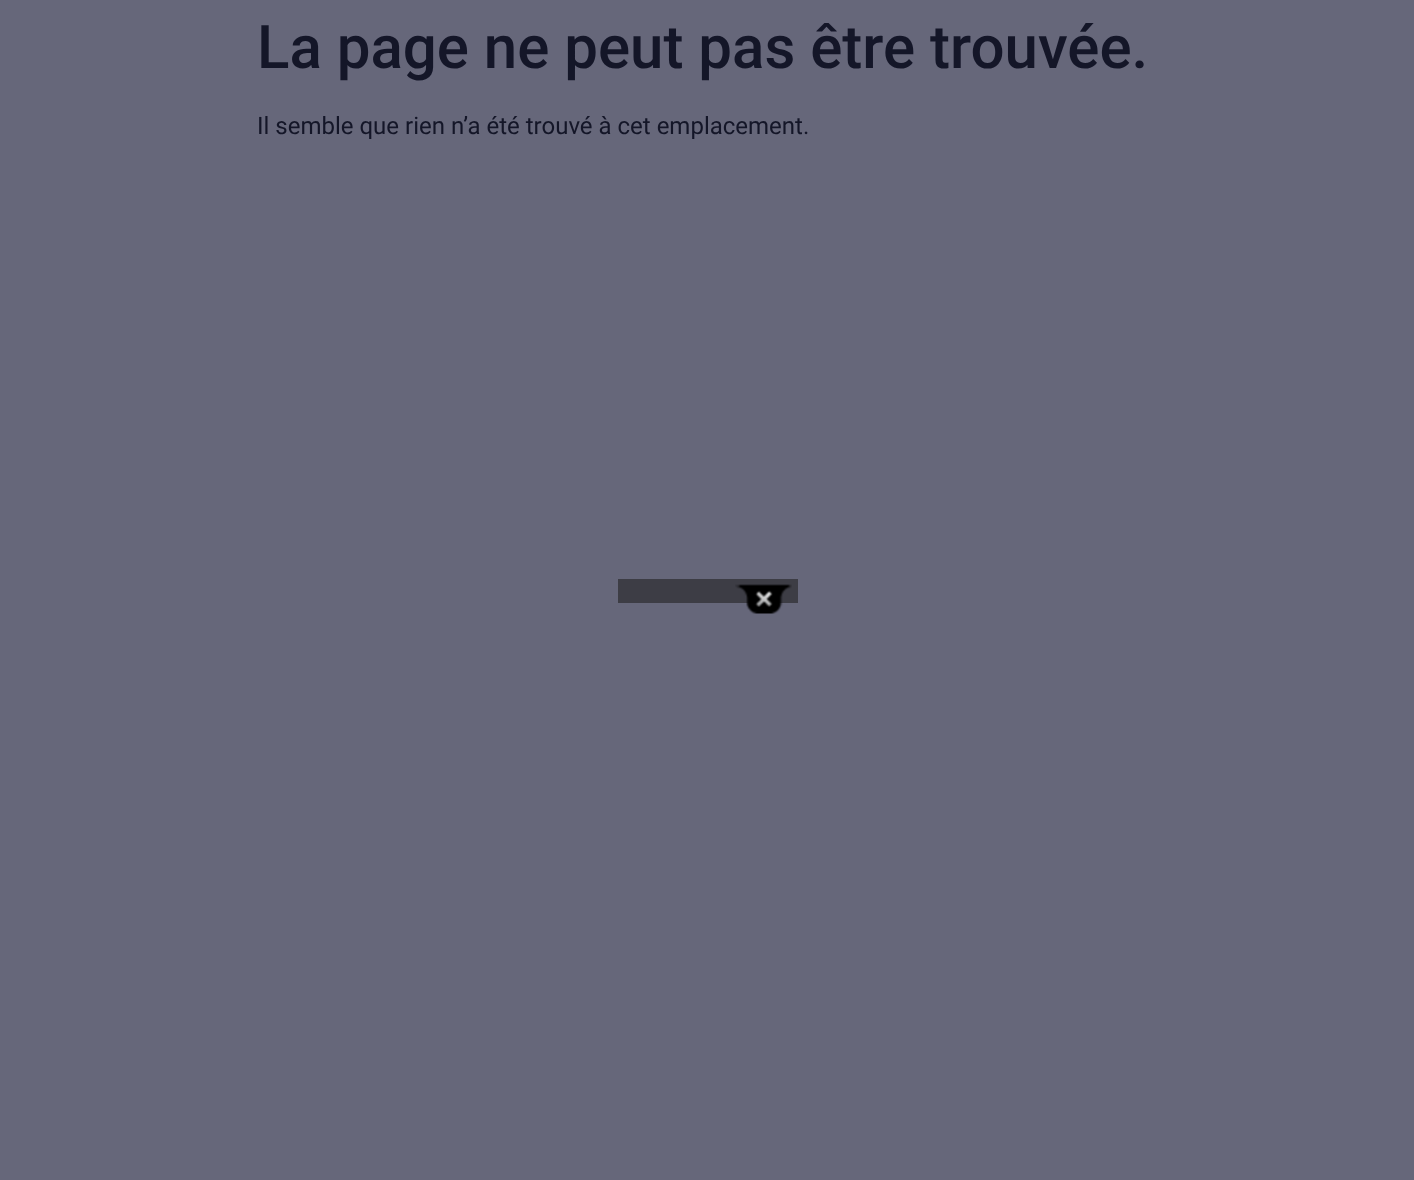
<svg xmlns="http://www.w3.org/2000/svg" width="1414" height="1180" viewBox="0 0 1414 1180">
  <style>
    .t1 { font: 500 60px Roboto; fill: #141628; }
    .t2 { font: 24px Roboto; fill: #141628; }
  </style>
  <rect width="100%" height="100%" fill="#66677a"/>
  <text x="257" y="68" class="t1">La page ne peut pas être trouvée.</text>
  <text x="257" y="134" class="t2">Il semble que rien n’a été trouvé à cet emplacement.</text>
  <rect x="618" y="579" width="180" height="24" fill="#3d3d45"/>
  <image x="735" y="584" width="57" height="30" href="images/1.png"/>
</svg>
